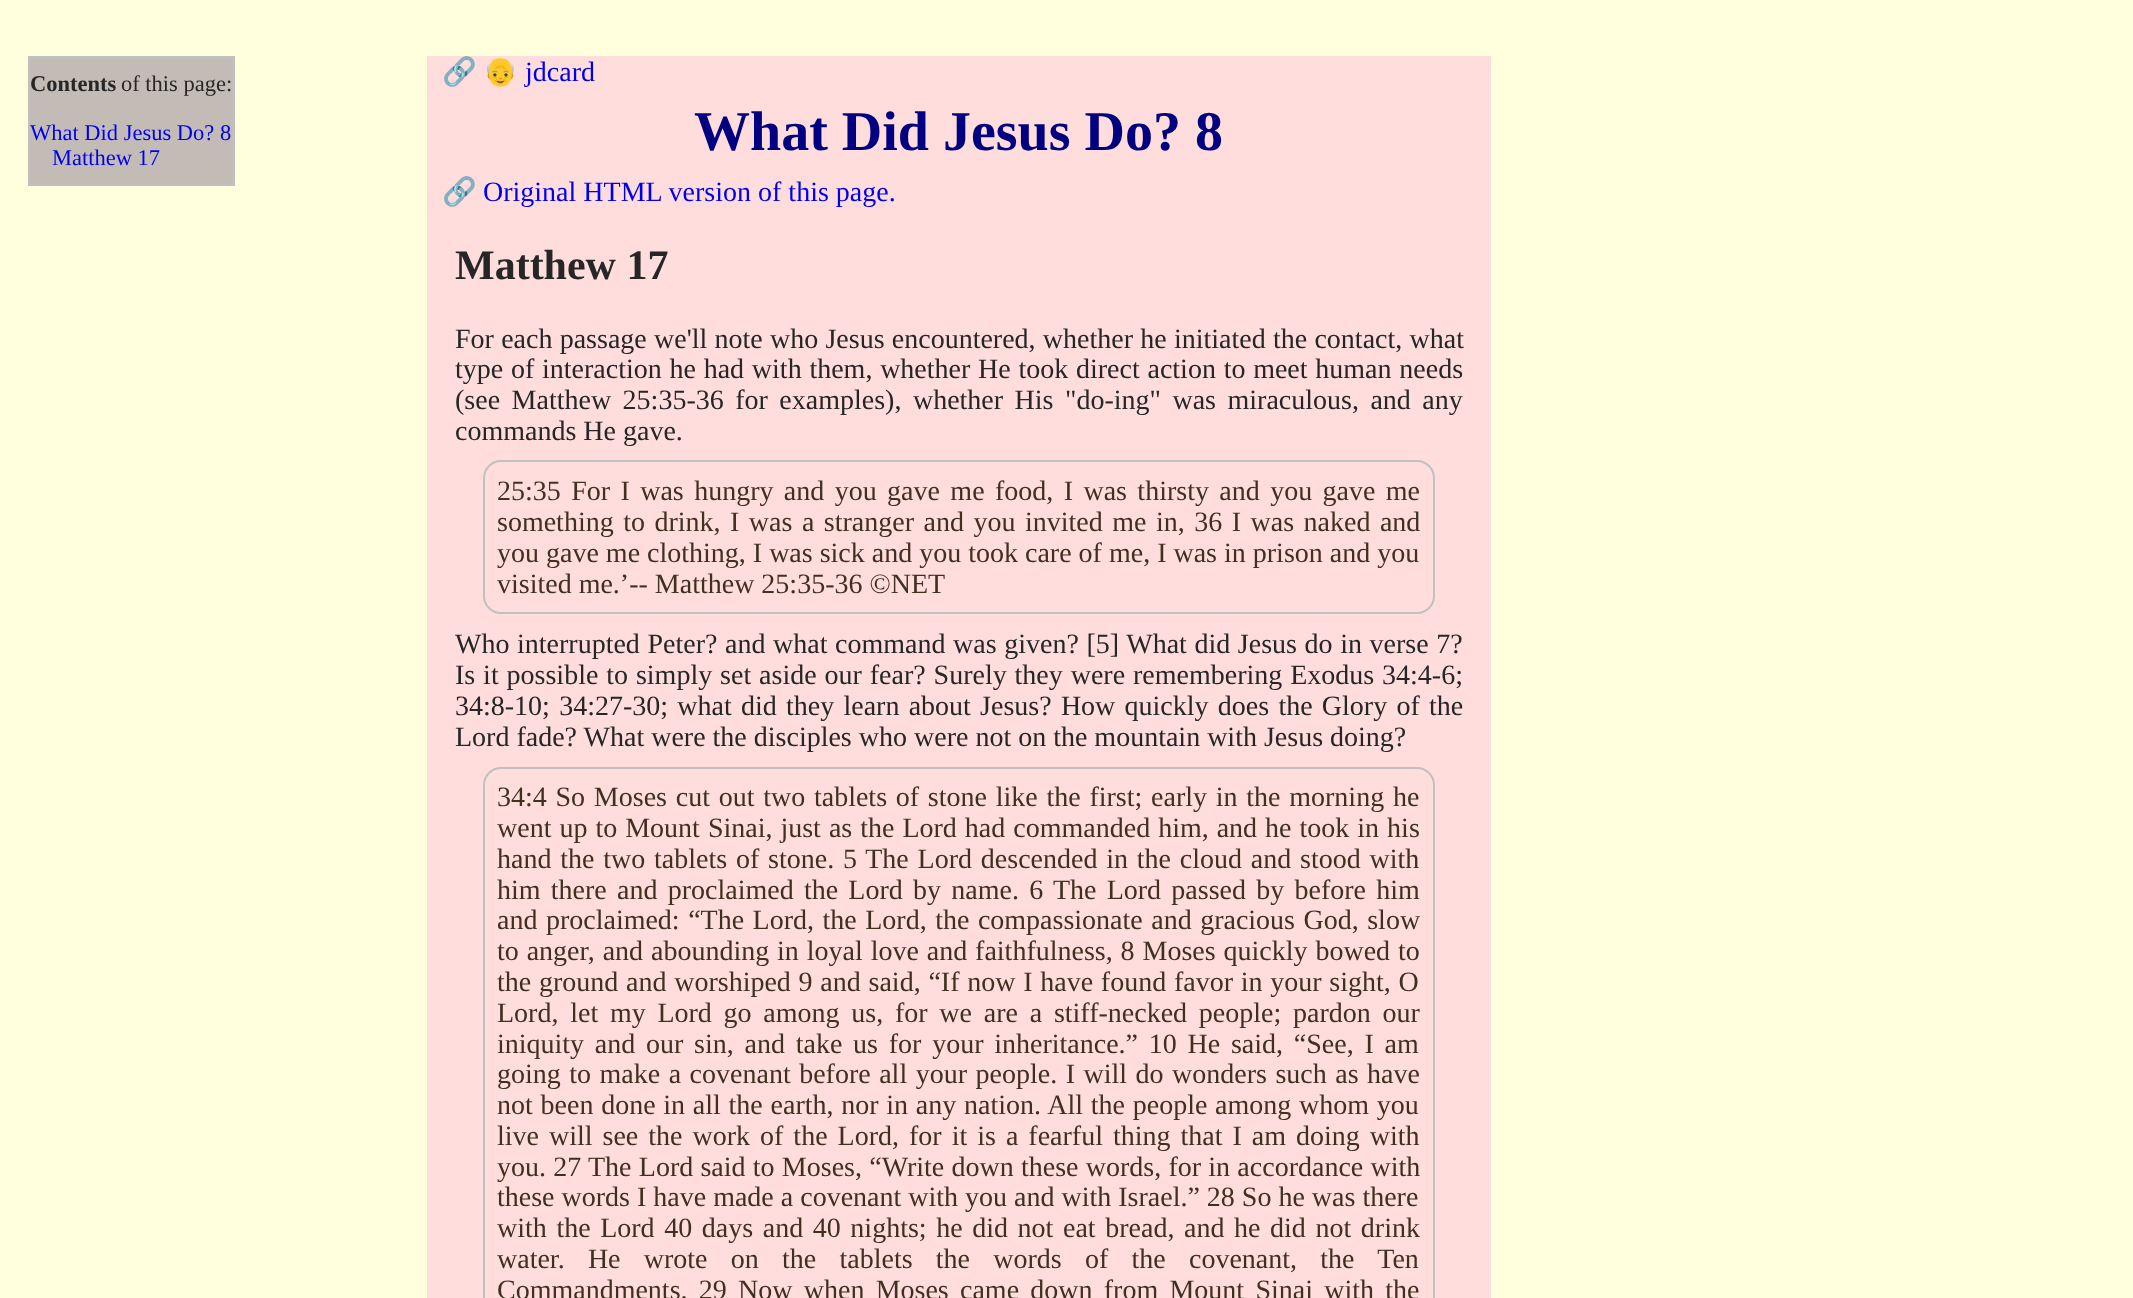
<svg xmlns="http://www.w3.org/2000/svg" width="2133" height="1298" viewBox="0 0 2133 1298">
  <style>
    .t1 { font: bold 22.5px Liberation Serif; fill: #262626; }
    .t2 { font: 22.5px Liberation Serif; fill: #262626; }
    .t3 { font: 22.5px Liberation Serif; fill: #00e; }
    .t4 { font: 28px Noto Color Emoji; fill: #808080; }
    .t5 { font: 28px Noto Color Emoji; fill: #00e; }
    .t6 { font: 28px Liberation Serif; fill: #00e; }
    .t7 { font: bold 56px Liberation Serif; fill: #000080; }
    .t8 { font: bold 42px Liberation Serif; fill: #262626; }
    .t9 { font: 28px Liberation Serif; fill: #262626; }
    .t10 { font: 28px Liberation Serif; fill: #403020; }
  </style>
  <rect width="100%" height="100%" fill="#ffd"/>
  <rect x="427" y="56" width="1064" height="1242" fill="#fdd"/>
  <rect x="29" y="57" width="205" height="128" fill="#c3bcb6" stroke="#c0c0c0" stroke-width="2"/>
  <text x="30" y="91" class="t1">Contents</text>
  <text x="121" y="91" class="t2">of this page:</text>
  <text x="30" y="140" class="t3">What Did Jesus Do? 8</text>
  <text x="52" y="165" class="t3">Matthew 17</text>
  <text x="442" y="81" class="t4">🔗</text>
  <text x="483" y="81" class="t5">👴</text>
  <text x="525" y="81" class="t6">jdcard</text>
  <text x="694" y="150" class="t7">What Did Jesus Do? 8</text>
  <text x="442" y="201" class="t4">🔗</text>
  <text x="483" y="201" class="t6">Original HTML version of this page.</text>
  <text x="455" y="279" class="t8">Matthew 17</text>
  <text x="455" y="348" word-spacing="0.25" class="t9">For each passage we'll note who Jesus encountered, whether he initiated the contact, what</text>
  <text x="455" y="378" word-spacing="0.75" class="t9">type of interaction he had with them, whether He took direct action to meet human needs</text>
  <text x="455" y="409" word-spacing="4.5" class="t9">(see Matthew 25:35-36 for examples), whether His "do-ing" was miraculous, and any</text>
  <text x="455" y="440" class="t9">commands He gave.</text>
  <rect x="484" y="461" width="950" height="152" rx="17" fill="none" stroke="#c0c0c0" stroke-width="2"/>
  <text x="497" y="500" word-spacing="3.4" class="t10">25:35 For I was hungry and you gave me food, I was thirsty and you gave me</text>
  <text x="497" y="531" word-spacing="2.5" class="t10">something to drink, I was a stranger and you invited me in, 36 I was naked and</text>
  <text x="497" y="562" class="t10">you gave me clothing, I was sick and you took care of me, I was in prison and you</text>
  <text x="497" y="593" class="t10">visited me.’-- Matthew 25:35-36 ©NET</text>
  <text x="455" y="653" word-spacing="0.6" class="t9">Who interrupted Peter? and what command was given? [5] What did Jesus do in verse 7?</text>
  <text x="455" y="684" word-spacing="0.9" class="t9">Is it possible to simply set aside our fear? Surely they were remembering Exodus 34:4-6;</text>
  <text x="455" y="715" word-spacing="2.25" class="t9">34:8-10; 34:27-30; what did they learn about Jesus? How quickly does the Glory of the</text>
  <text x="455" y="746" class="t9">Lord fade? What were the disciples who were not on the mountain with Jesus doing?</text>
  <rect x="484" y="768" width="950" height="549" rx="17" fill="none" stroke="#c0c0c0" stroke-width="2"/>
  <text x="497" y="806" word-spacing="1.75" class="t10">34:4 So Moses cut out two tablets of stone like the first; early in the morning he</text>
  <text x="497" y="837" word-spacing="1" class="t10">went up to Mount Sinai, just as the Lord had commanded him, and he took in his</text>
  <text x="497" y="868" word-spacing="1.8" class="t10">hand the two tablets of stone. 5 The Lord descended in the cloud and stood with</text>
  <text x="497" y="899" word-spacing="3.25" class="t10">him there and proclaimed the Lord by name. 6 The Lord passed by before him</text>
  <text x="497" y="929" word-spacing="1.5" class="t10">and proclaimed: “The Lord, the Lord, the compassionate and gracious God, slow</text>
  <text x="497" y="960" word-spacing="0.9" class="t10">to anger, and abounding in loyal love and faithfulness, 8 Moses quickly bowed to</text>
  <text x="497" y="991" word-spacing="0.75" class="t10">the ground and worshiped 9 and said, “If now I have found favor in your sight, O</text>
  <text x="497" y="1022" word-spacing="4.75" class="t10">Lord, let my Lord go among us, for we are a stiff-necked people; pardon our</text>
  <text x="497" y="1053" word-spacing="3.75" class="t10">iniquity and our sin, and take us for your inheritance.” 10 He said, “See, I am</text>
  <text x="497" y="1083" word-spacing="1.5" class="t10">going to make a covenant before all your people. I will do wonders such as have</text>
  <text x="497" y="1114" word-spacing="0.75" class="t10">not been done in all the earth, nor in any nation. All the people among whom you</text>
  <text x="497" y="1145" word-spacing="3" class="t10">live will see the work of the Lord, for it is a fearful thing that I am doing with</text>
  <text x="497" y="1176" word-spacing="0.25" class="t10">you. 27 The Lord said to Moses, “Write down these words, for in accordance with</text>
  <text x="497" y="1206" class="t10">these words I have made a covenant with you and with Israel.” 28 So he was there</text>
  <text x="497" y="1237" word-spacing="2.6" class="t10">with the Lord 40 days and 40 nights; he did not eat bread, and he did not drink</text>
  <text x="497" y="1268" word-spacing="16.25" class="t10">water. He wrote on the tablets the words of the covenant, the Ten</text>
  <text x="497" y="1299" word-spacing="4.25" class="t10">Commandments. 29 Now when Moses came down from Mount Sinai with the</text>
</svg>
